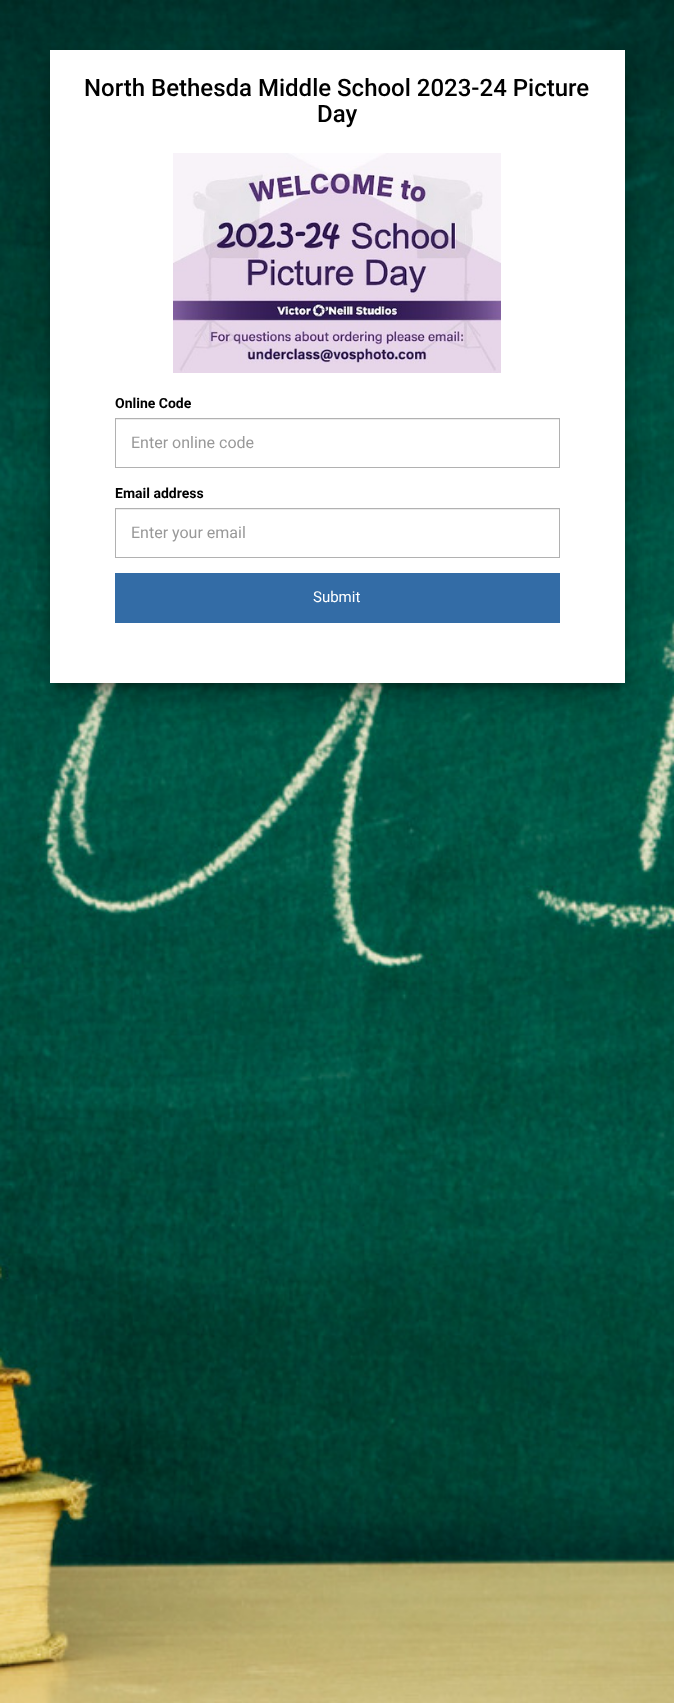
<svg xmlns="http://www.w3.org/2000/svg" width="674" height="1703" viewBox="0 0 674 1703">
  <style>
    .t1 { font: 500 24px Roboto; fill: #000; }
    .t2 { font: bold 14px Roboto; fill: #000; }
    .t3 { font: 16px Roboto; fill: #999; }
    .t4 { font: 15px Roboto; fill: #fff; }
  </style>
  <rect width="100%" height="100%" fill="#fff"/>
  <image x="0" y="0" width="674" height="1703" href="images/1.png"/>
  <rect x="55" y="63" width="565" height="623" fill="#00000066" filter="blur(5px)"/>
  <rect x="45" y="51" width="585" height="643" fill="#0000001f" filter="blur(15px)"/>
  <rect x="48" y="64" width="579" height="637" fill="#00000024" filter="blur(12px)"/>
  <rect x="50" y="50" width="575" height="633" fill="#fff"/>
  <text x="84" y="96" class="t1">North Bethesda Middle School 2023-24 Picture</text>
  <text x="317" y="122" class="t1">Day</text>
  <image x="173" y="153" width="328" height="220" href="images/2.png"/>
  <text x="115" y="408" class="t2">Online Code</text>
  <rect x="116" y="419" width="443" height="1" fill="#ececec"/>
  <rect x="115.5" y="418.5" width="444" height="49" fill="none" stroke="#b1b1b1"/>
  <text x="131" y="448" class="t3">Enter online code</text>
  <text x="115" y="498" class="t2">Email address</text>
  <rect x="116" y="509" width="443" height="1" fill="#ececec"/>
  <rect x="115.5" y="508.5" width="444" height="49" fill="none" stroke="#b1b1b1"/>
  <text x="131" y="538" class="t3">Enter your email</text>
  <rect x="115" y="573" width="445" height="50" fill="#336ca6"/>
  <text x="313" y="602" class="t4">Submit</text>
</svg>
